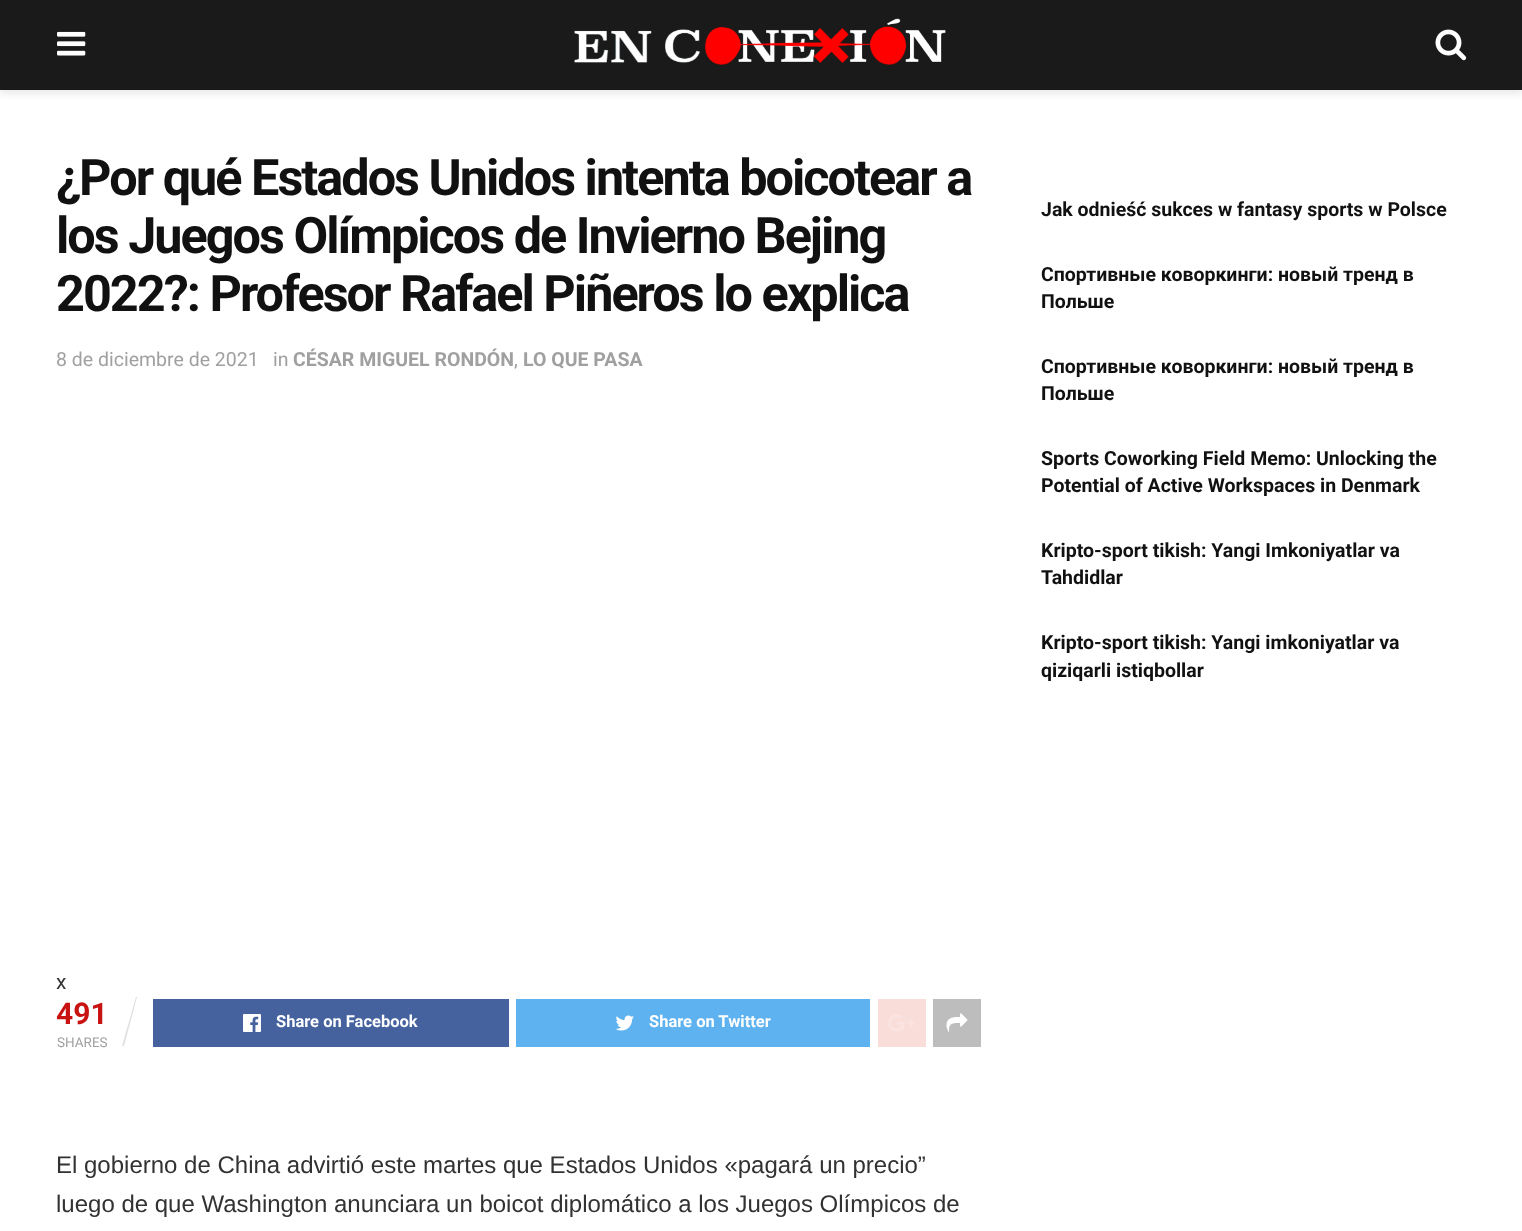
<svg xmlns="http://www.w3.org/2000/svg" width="1522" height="1231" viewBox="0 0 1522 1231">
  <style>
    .t1 { font: bold 50.4px Roboto; letter-spacing: -2px; fill: #111; }
    .t2 { font: 19.5px Roboto; fill: #a0a0a0; }
    .t3 { font: bold 19.5px Roboto; fill: #a0a0a0; }
    .t4 { font: 21px Roboto; fill: #323232; }
    .t5 { font: bold 30px Roboto; fill: #c91212; }
    .t6 { font: 13.5px Roboto; fill: #a0a0a0; }
    .t7 { font: bold 16.5px Roboto; fill: #fff; }
    .t8 { font: 24px Liberation Sans; fill: #323232; }
    .t9 { font: bold 19.5px Roboto; fill: #111; }
  </style>
  <rect width="100%" height="100%" fill="#fff"/>
  <rect x="0" y="3" width="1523" height="90" fill="#0000001a" filter="blur(4.5px)"/>
  <rect x="0" y="0" width="1522" height="90" fill="#1a1a1a"/>
  <image x="57" y="31" width="29" height="25" href="images/1.png"/>
  <image x="574" y="18" width="372" height="47" href="images/2.png"/>
  <image x="1435" y="29" width="32" height="32" href="images/3.png"/>
  <text x="56" y="195" class="t1">¿Por qué Estados Unidos intenta boicotear a</text>
  <text x="56" y="253" class="t1">los Juegos Olímpicos de Invierno Bejing</text>
  <text x="56" y="311" class="t1">2022?: Profesor Rafael Piñeros lo explica</text>
  <text x="56" y="366" class="t2">8 de diciembre de 2021</text>
  <text x="273" y="366" class="t2">in</text>
  <text x="293" y="366" class="t3">CÉSAR MIGUEL RONDÓN</text>
  <text x="514" y="366" class="t2">,</text>
  <text x="523" y="366" class="t3">LO QUE PASA</text>
  <text x="56" y="989" class="t4">x</text>
  <text x="56" y="1024" class="t5">491</text>
  <path d="M136 997H137L124 1046H122Z" fill="#e0e0e0"/>
  <text x="57" y="1047" class="t6">SHARES</text>
  <rect x="153" y="999" width="356" height="48" fill="#45629f"/>
  <image x="243" y="1014" width="18" height="18" href="images/4.png"/>
  <text x="276" y="1027" class="t7">Share on Facebook</text>
  <rect x="516" y="999" width="354" height="48" fill="#5eb2ef"/>
  <image x="615" y="1015" width="19" height="16" href="images/5.png"/>
  <text x="649" y="1027" class="t7">Share on Twitter</text>
  <rect x="878" y="999" width="48" height="48" fill="#f9ddd9"/>
  <image x="888" y="1014" width="27" height="18" href="images/6.png"/>
  <rect x="933" y="999" width="48" height="48" fill="#bdbdbd"/>
  <image x="946" y="1013" width="22" height="19" href="images/7.png"/>
  <text x="56" y="1173" class="t8">El gobierno de China advirtió este martes que Estados Unidos «pagará un precio”</text>
  <text x="56" y="1212" class="t8">luego de que Washington anunciara un boicot diplomático a los Juegos Olímpicos de</text>
  <text x="1041" y="216" class="t9">Jak odnieść sukces w fantasy sports w Polsce</text>
  <text x="1041" y="281" class="t9">Спортивные коворкинги: новый тренд в</text>
  <text x="1041" y="308" class="t9">Польше</text>
  <text x="1041" y="373" class="t9">Спортивные коворкинги: новый тренд в</text>
  <text x="1041" y="400" class="t9">Польше</text>
  <text x="1041" y="465" class="t9">Sports Coworking Field Memo: Unlocking the</text>
  <text x="1041" y="492" class="t9">Potential of Active Workspaces in Denmark</text>
  <text x="1041" y="557" class="t9">Kripto-sport tikish: Yangi Imkoniyatlar va</text>
  <text x="1041" y="584" class="t9">Tahdidlar</text>
  <text x="1041" y="649" class="t9">Kripto-sport tikish: Yangi imkoniyatlar va</text>
  <text x="1041" y="677" class="t9">qiziqarli istiqbollar</text>
</svg>
